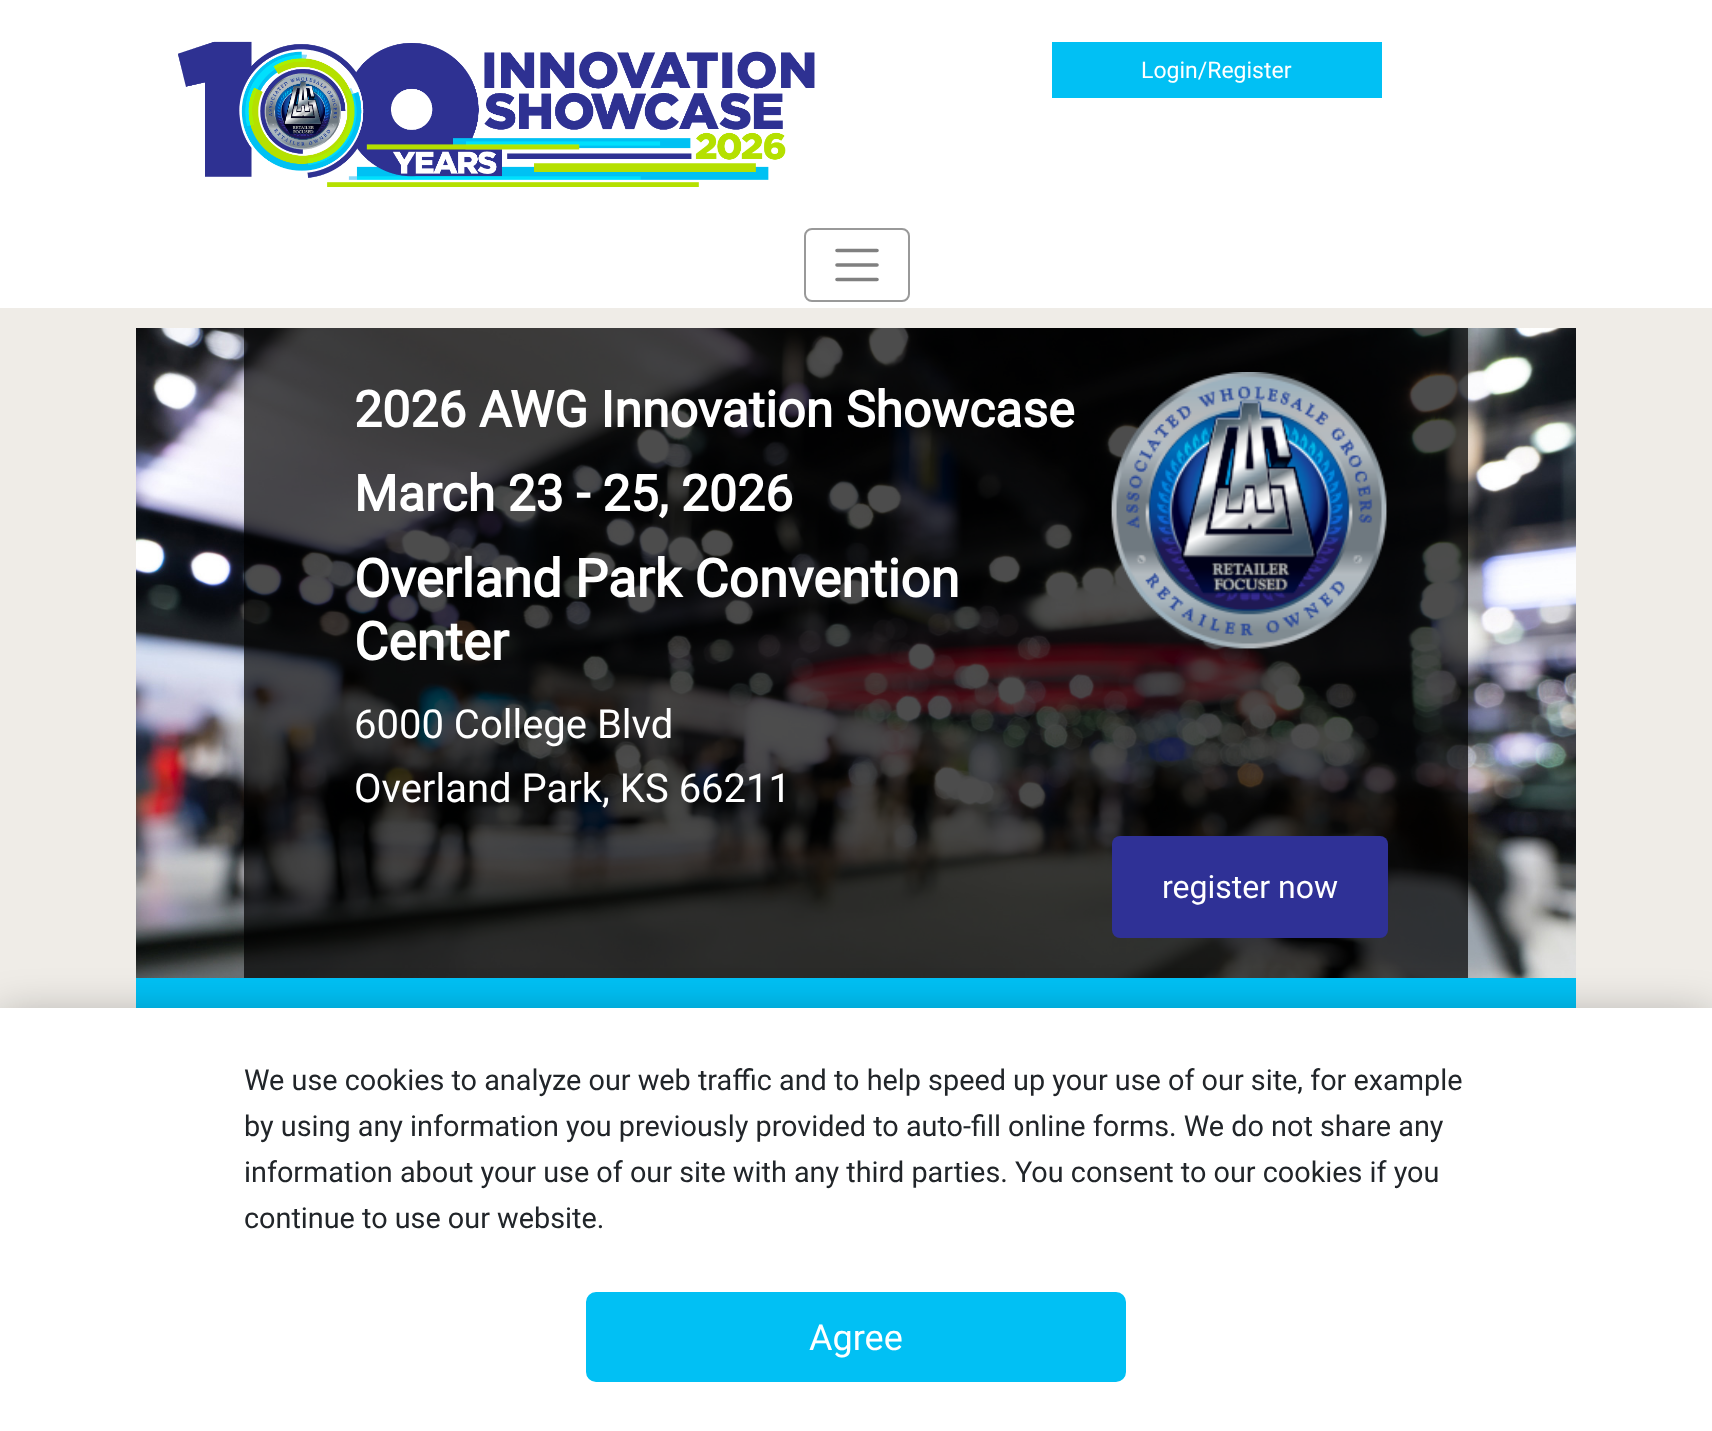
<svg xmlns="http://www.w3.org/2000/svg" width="1712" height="1431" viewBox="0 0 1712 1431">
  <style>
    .t1 { font: 23px Roboto; fill: #fff; }
    .t2 { font: bold 50px Roboto; fill: #fff; }
    .t3 { font: bold 52.75px Roboto; fill: #fff; }
    .t4 { font: 40px Roboto; fill: #fff; }
    .t5 { font: 32px Roboto; fill: #fff; }
    .t6 { font: 28.8px Roboto; fill: #212529; }
    .t7 { font: 36px Roboto; fill: #fff; }
  </style>
  <rect width="100%" height="100%" fill="#efece7"/>
  <rect x="0" y="0" width="1712" height="308" fill="#fff"/>
  <image x="178" y="41" width="637" height="146" href="images/1.png"/>
  <rect x="1052" y="42" width="330" height="56" fill="#01c0f4"/>
  <text x="1141" y="78" class="t1">Login/Register</text>
  <rect x="805" y="229" width="104" height="72" rx="7" fill="none" stroke="#999" stroke-width="2"/>
  <path d="M837 250.5H877M837 265H877M837 279.5H877" fill="none" stroke="#808080" stroke-width="3.6" stroke-linecap="round"/>
  <image x="136" y="328" width="1440" height="650" href="images/2.png"/>
  <rect x="244" y="328" width="1224" height="650" fill="#000000b3"/>
  <text x="354" y="427" class="t2">2026 AWG Innovation Showcase</text>
  <text x="354" y="511" class="t2">March 23 - 25, 2026</text>
  <text x="354" y="597" class="t3">Overland Park Convention</text>
  <text x="354" y="660" class="t3">Center</text>
  <text x="354" y="738" class="t4">6000 College Blvd</text>
  <text x="354" y="802" class="t4">Overland Park, KS 66211</text>
  <image x="1110" y="372" width="278" height="278" href="images/3.png"/>
  <rect x="1112" y="836" width="276" height="102" rx="8" fill="#2f3196"/>
  <text x="1162" y="898" class="t5">register now</text>
  <rect x="136" y="978" width="1440" height="30" fill="#01c0f4"/>
  <rect x="0" y="1016" width="1712" height="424" fill="#0000004d" filter="blur(22px)"/>
  <rect x="0" y="1008" width="1712" height="423" fill="#fff"/>
  <text x="244" y="1090" class="t6">We use cookies to analyze our web traffic and to help speed up your use of our site, for example</text>
  <text x="244" y="1136" class="t6">by using any information you previously provided to auto-fill online forms. We do not share any</text>
  <text x="244" y="1182" class="t6">information about your use of our site with any third parties. You consent to our cookies if you</text>
  <text x="244" y="1228" class="t6">continue to use our website.</text>
  <rect x="587" y="1293" width="538" height="88" rx="9" fill="#01c0f4" stroke="#01c0f4" stroke-width="2"/>
  <text x="809" y="1350" class="t7">Agree</text>
</svg>
